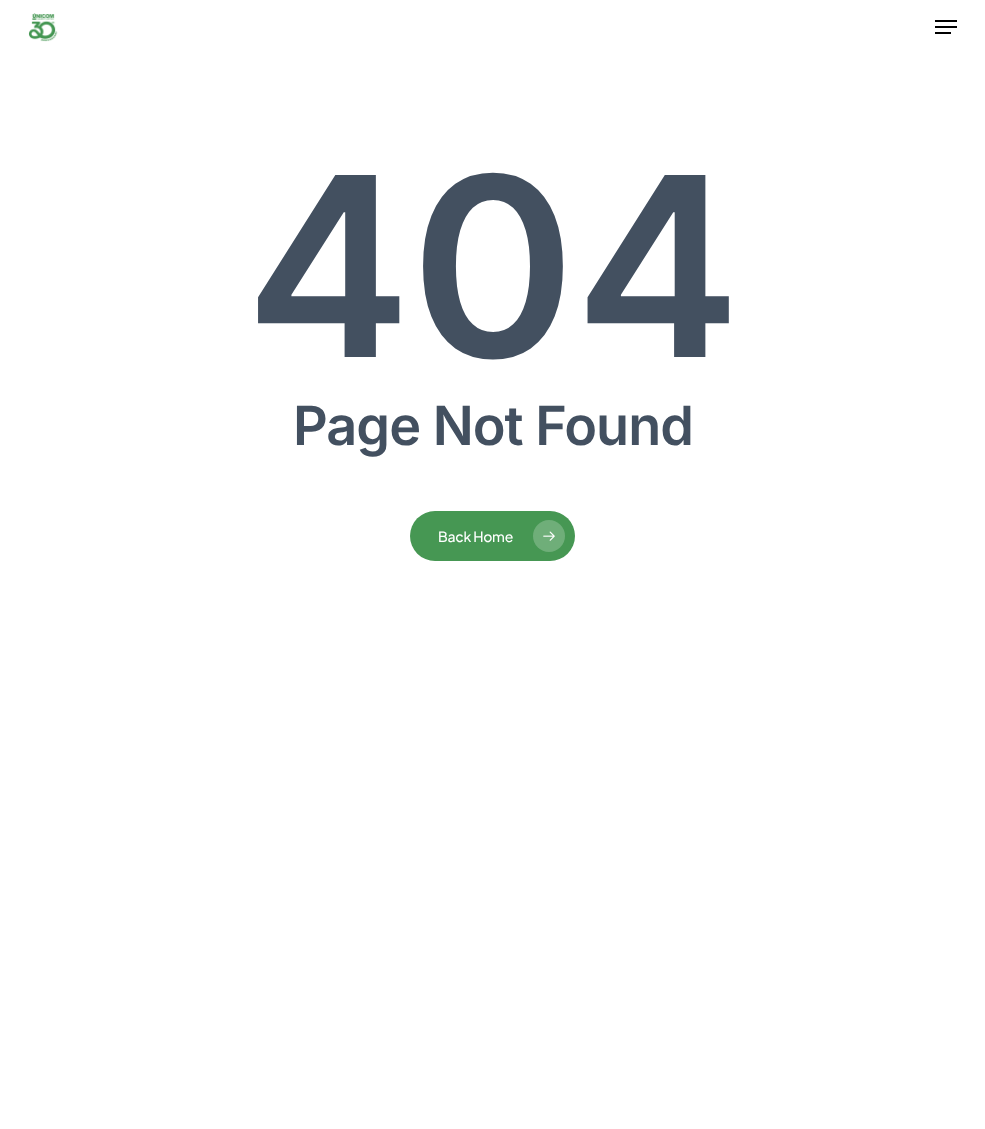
<svg xmlns="http://www.w3.org/2000/svg" width="985" height="1129" viewBox="0 0 985 1129">
  <style>
    .t1 { font: 600 250px Inter; letter-spacing: -1px; fill: #435060; }
    .t2 { font: 600 54px Inter; letter-spacing: -1px; fill: #435060; }
    .t3 { font: 500 14px Plus Jakarta Sans; letter-spacing: -0.25px; fill: #fff; }
  </style>
  <rect width="100%" height="100%" fill="#fff"/>
  <image x="28" y="13" width="30" height="29" href="images/1.png"/>
  <rect x="935" y="20" width="22" height="2" fill="#000"/>
  <rect x="935" y="32" width="16" height="2" fill="#000"/>
  <rect x="935" y="26" width="22" height="2" fill="#000"/>
  <text x="245" y="357" class="t1">404</text>
  <text x="293" y="445" class="t2">Page Not Found</text>
  <rect x="410" y="511" width="165" height="50" rx="25" fill="#469753"/>
  <text x="438" y="542" class="t3">Back Home</text>
  <circle cx="549" cy="536" r="16" fill="#6fae79"/>
  <image x="543" y="531" width="12" height="10" href="images/2.png"/>
</svg>
